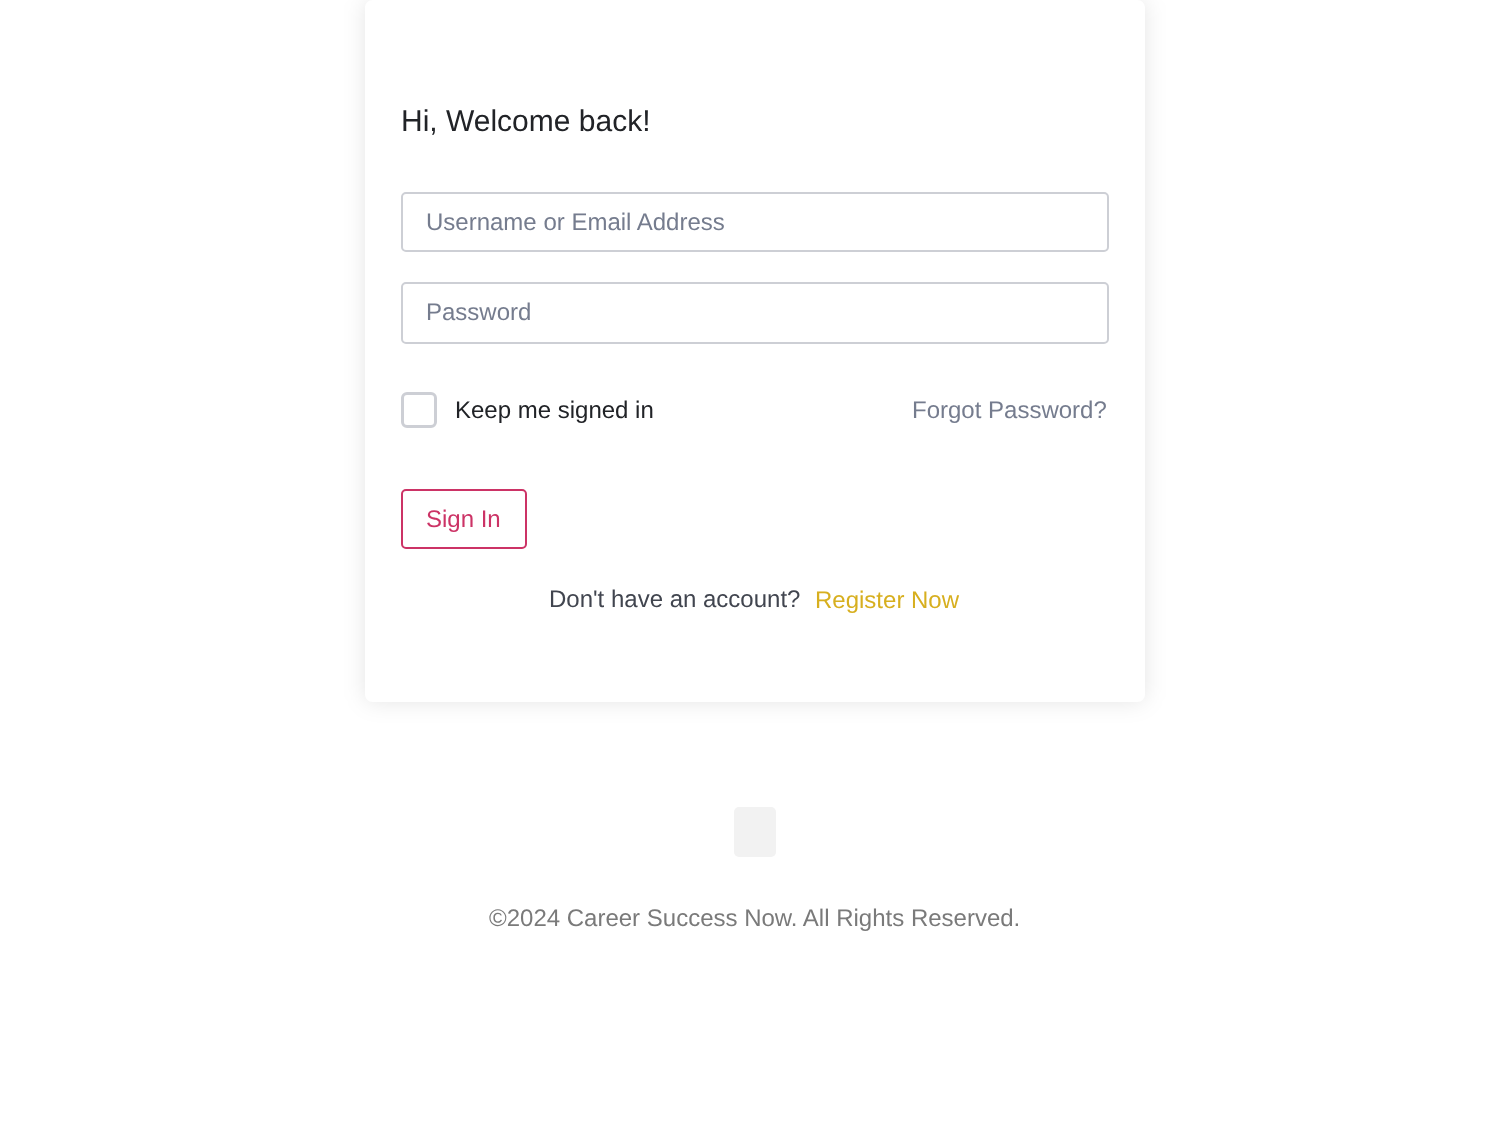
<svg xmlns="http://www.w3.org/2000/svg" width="1509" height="1121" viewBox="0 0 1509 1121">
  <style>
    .t1 { font: 30px Liberation Sans; fill: #212327; }
    .t2 { font: 24px Liberation Sans; fill: #757c8e; }
    .t3 { font: 24px Liberation Sans; fill: #212327; }
    .t4 { font: 24px Liberation Sans; fill: #c36; }
    .t5 { font: 24px Liberation Sans; fill: #41454f; }
    .t6 { font: 24px Liberation Sans; fill: #d7af1f; }
    .t7 { font: 24px Liberation Sans; fill: #7a7a7a; }
  </style>
  <defs>
    <clipPath id="clip1"><path d="M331 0H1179V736H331ZM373 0H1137C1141.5 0 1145 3.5 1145 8V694C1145 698.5 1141.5 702 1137 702H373C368.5 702 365 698.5 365 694V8C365 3.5 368.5 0 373 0Z" clip-rule="evenodd"/></clipPath>
  </defs>
  <rect width="100%" height="100%" fill="#fff"/>
  <g clip-path="url(#clip1)">
    <rect x="365" y="0" width="780" height="702" rx="8" fill="#0000001a" filter="blur(11px)"/>
  </g>
  <text x="401" y="131" class="t1">Hi, Welcome back!</text>
  <rect x="402" y="193" width="706" height="58" rx="4" fill="none" stroke="#cdcfd5" stroke-width="2"/>
  <text x="426" y="230" class="t2">Username or Email Address</text>
  <rect x="402" y="283" width="706" height="60" rx="4" fill="none" stroke="#cdcfd5" stroke-width="2"/>
  <text x="426" y="320" class="t2">Password</text>
  <rect x="402.5" y="393.5" width="33" height="33" rx="4.5" fill="none" stroke="#cdcfd5" stroke-width="3"/>
  <text x="455" y="418" class="t3">Keep me signed in</text>
  <text x="912" y="418" class="t2">Forgot Password?</text>
  <rect x="402" y="490" width="124" height="58" rx="4" fill="none" stroke="#c36" stroke-width="2"/>
  <text x="426" y="527" class="t4">Sign In</text>
  <text x="549" y="607" class="t5">Don't have an account?</text>
  <text x="815" y="608" class="t6">Register Now</text>
  <rect x="734" y="807" width="42" height="50" rx="5" fill="#f2f2f2"/>
  <text x="489" y="926" class="t7">©2024 Career Success Now. All Rights Reserved.</text>
</svg>
